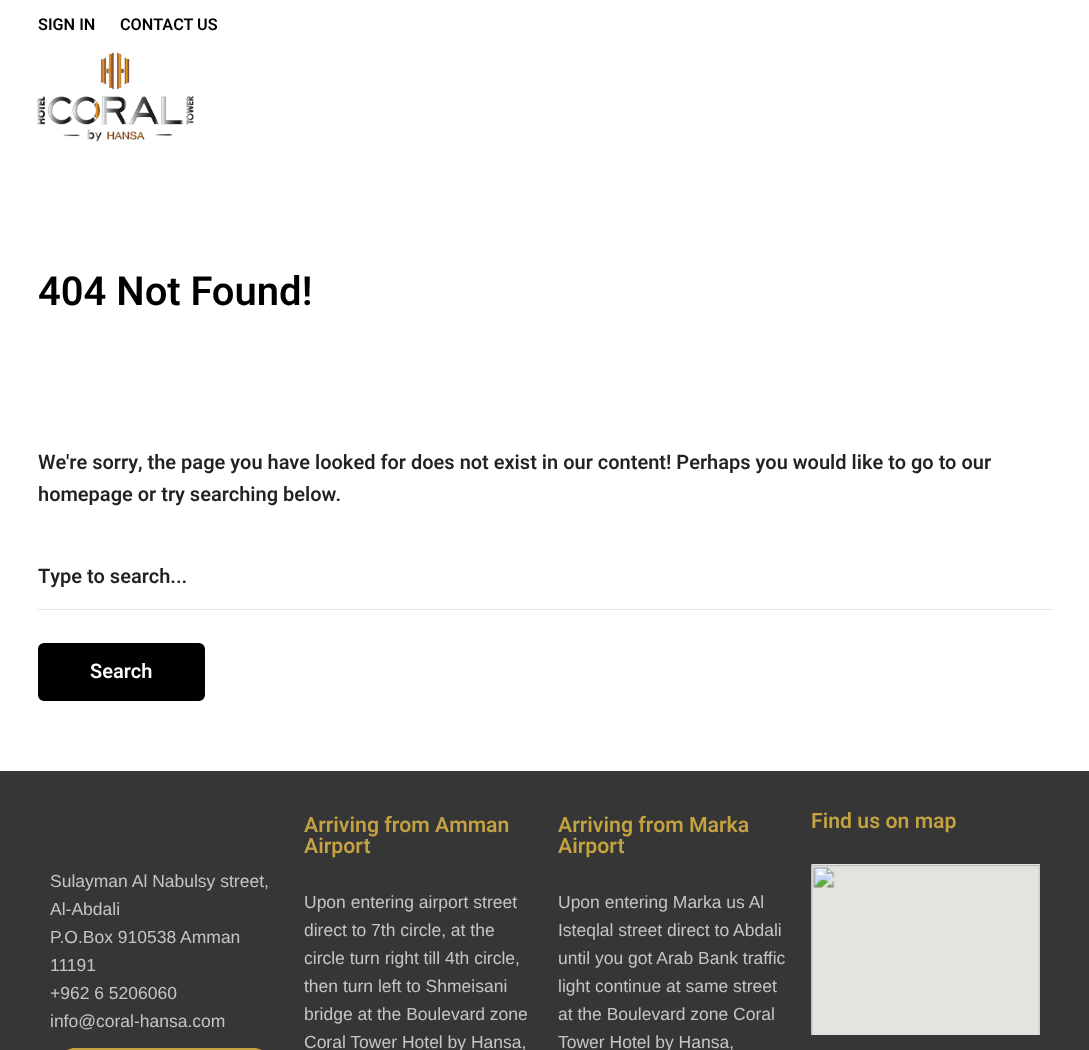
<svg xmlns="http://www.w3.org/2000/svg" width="1089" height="1050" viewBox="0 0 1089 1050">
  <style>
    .t1 { font: 600 16.25px Heebo; fill: #000; }
    .t2 { font: 600 40px Heebo; fill: #000; }
    .t3 { font: 600 20px Heebo; fill: #222; }
    .t4 { font: 600 20px Heebo; fill: #fff; }
    .t5 { font: 17.5px Liberation Sans; fill: #c5c5c5; }
    .t6 { font: 600 21.25px Heebo; fill: #c4a241; }
  </style>
  <rect width="100%" height="100%" fill="#fff"/>
  <text x="38" y="30" class="t1">SIGN IN</text>
  <text x="120" y="30" class="t1">CONTACT US</text>
  <image x="37" y="52" width="157" height="90" href="images/1.png"/>
  <text x="38" y="305" class="t2">404 Not Found!</text>
  <text x="38" y="469" class="t3">We're sorry, the page you have looked for does not exist in our content! Perhaps you would like to go to our</text>
  <text x="38" y="501" class="t3">homepage or try searching below.</text>
  <rect x="38" y="609" width="1015" height="1" fill="#e7e7e7"/>
  <text x="38" y="583" class="t3">Type to search...</text>
  <rect x="39.5" y="644.5" width="164" height="55" rx="4.5" fill="#000" stroke="#000" stroke-width="3"/>
  <text x="90" y="678" class="t4">Search</text>
  <rect x="0" y="771" width="1089" height="279" fill="#363636"/>
  <text x="50" y="887" class="t5">Sulayman Al Nabulsy street,</text>
  <text x="50" y="915" class="t5">Al-Abdali</text>
  <text x="50" y="943" class="t5">P.O.Box 910538 Amman</text>
  <text x="50" y="971" class="t5">11191</text>
  <text x="50" y="999" class="t5">+962 6 5206060</text>
  <text x="50" y="1027" class="t5">info@coral-hansa.com</text>
  <image x="67" y="1048" width="195" height="2" href="images/2.png"/>
  <text x="304" y="832" class="t6">Arriving from Amman</text>
  <text x="304" y="853" class="t6">Airport</text>
  <text x="304" y="908" class="t5">Upon entering airport street</text>
  <text x="304" y="936" class="t5">direct to 7th circle, at the</text>
  <text x="304" y="964" class="t5">circle turn right till 4th circle,</text>
  <text x="304" y="992" class="t5">then turn left to Shmeisani</text>
  <text x="304" y="1020" class="t5">bridge at the Boulevard zone</text>
  <text x="304" y="1048" class="t5">Coral Tower Hotel by Hansa,</text>
  <text x="558" y="832" class="t6">Arriving from Marka</text>
  <text x="558" y="853" class="t6">Airport</text>
  <text x="558" y="908" class="t5">Upon entering Marka us Al</text>
  <text x="558" y="936" class="t5">Isteqlal street direct to Abdali</text>
  <text x="558" y="964" class="t5">until you got Arab Bank traffic</text>
  <text x="558" y="992" class="t5">light continue at same street</text>
  <text x="558" y="1020" class="t5">at the Boulevard zone Coral</text>
  <text x="558" y="1048" class="t5">Tower Hotel by Hansa,</text>
  <text x="811" y="828" class="t6">Find us on map</text>
  <image x="811" y="864" width="229" height="171" href="images/3.png"/>
</svg>
